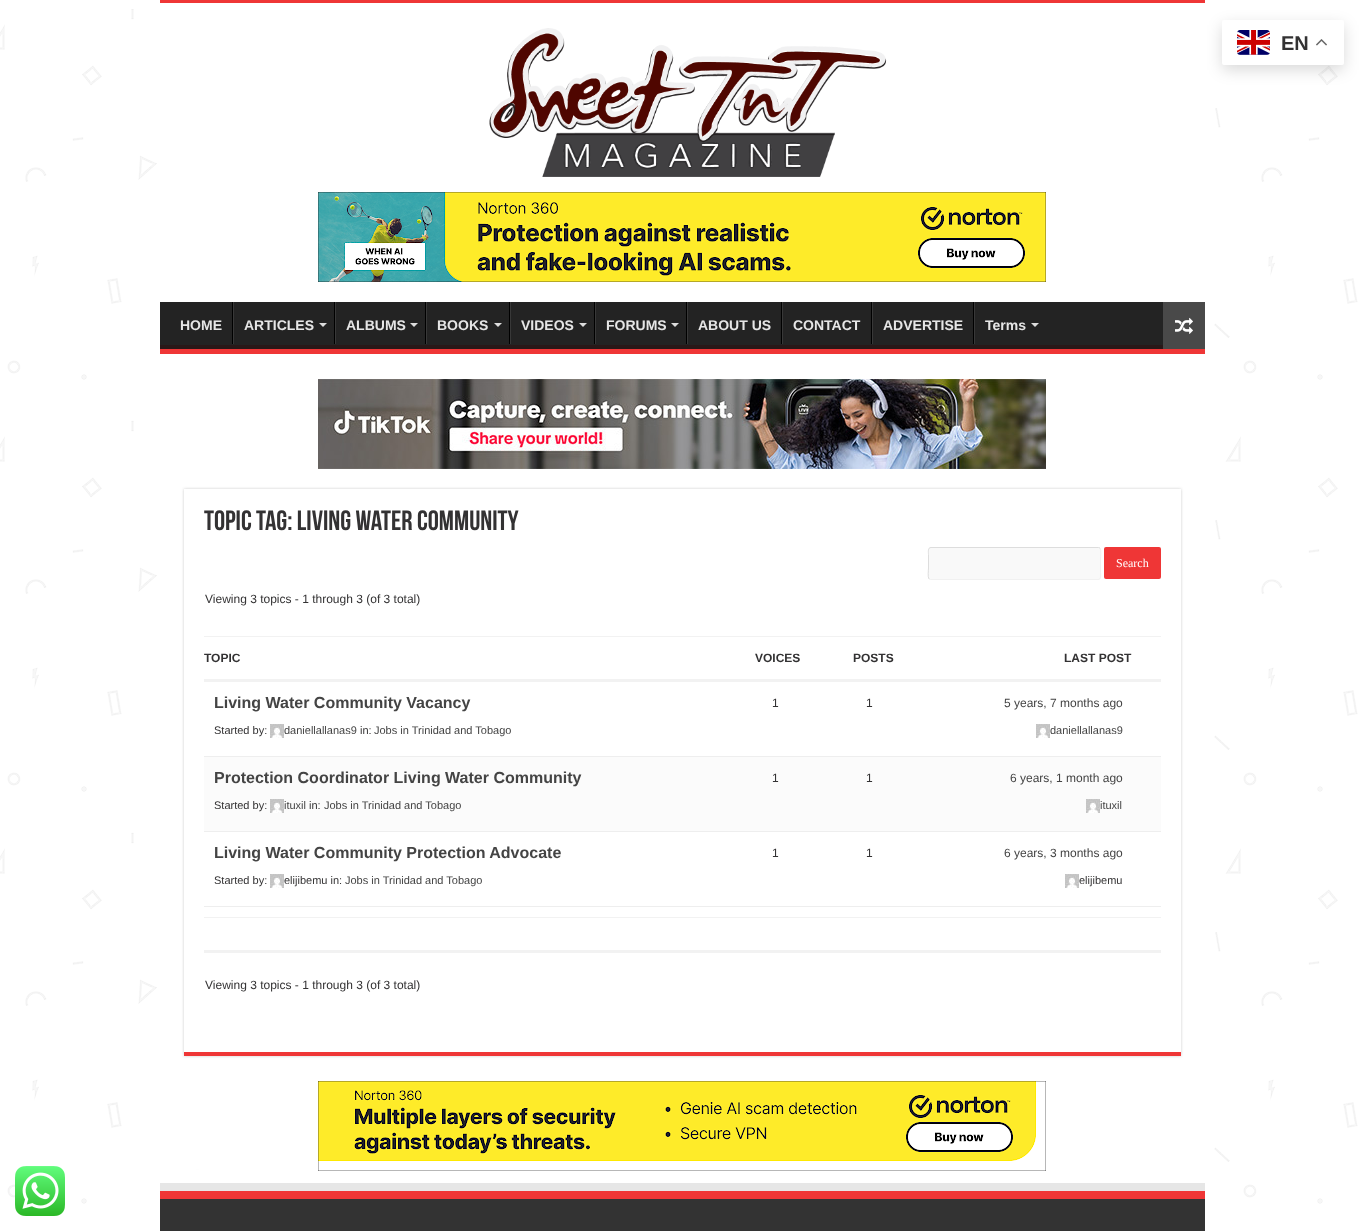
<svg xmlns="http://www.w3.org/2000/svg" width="1364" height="1231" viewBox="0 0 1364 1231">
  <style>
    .t1 { font: bold 20px Liberation Sans; fill: #333233; }
    .t2 { font: bold 14px Liberation Sans; fill: #e6e6e6; }
    .t3 { font: bold 28px Bebas Neue; fill: #333233; }
    .t4 { font: 12px Liberation Serif; fill: #fff; }
    .t5 { font: 12px Liberation Sans; fill: #333233; }
    .t6 { font: bold 12px Liberation Sans; fill: #333233; }
    .t7 { font: bold 16px Liberation Sans; fill: #444; }
    .t8 { font: 11px Liberation Sans; fill: #333233; }
    .t9 { font: 11px Liberation Sans; fill: #444; }
    .t10 { font: 12px Liberation Sans; fill: #444; }
  </style>
  <defs>
    <clipPath id="clip1"><rect x="160" y="302" width="1045" height="47"/></clipPath>
    <clipPath id="clip2"><path d="M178 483H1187V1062H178ZM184 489H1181V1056H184Z" clip-rule="evenodd"/></clipPath>
  </defs>
  <rect width="100%" height="100%" fill="#fff"/>
  <image x="0" y="9" width="1358" height="1195" href="images/1.png"/>
  <rect x="161" y="9" width="1039" height="1160" fill="#fff"/>
  <rect x="160" y="0" width="1045" height="3" fill="#ef3636"/>
  <rect x="1222" y="25" width="122" height="45" rx="2" fill="#00000026" filter="blur(7.5px)"/>
  <rect x="1222" y="20" width="122" height="45" rx="2" fill="#fff"/>
  <image x="1237" y="30" width="33" height="25" href="images/2.png"/>
  <text x="1281" y="50" class="t1">EN</text>
  <image x="1316" y="39" width="11" height="7" href="images/3.png"/>
  <image x="489" y="28" width="398" height="149" href="images/4.png"/>
  <image x="318" y="192" width="728" height="90" href="images/5.png"/>
  <rect x="160" y="302" width="1003" height="43" fill="#232323"/>
  <g clip-path="url(#clip1)">
    <path d="M61 203H1304V448H61ZM159 296H1205V336C1205 337 1206 345 1204 345H159L158 344V296Z" fill="#291818" fill-rule="evenodd"/>
  </g>
  <rect x="160" y="349" width="1045" height="5" fill="#ef3636"/>
  <text x="180" y="330" class="t2">HOME</text>
  <rect x="232" y="302" width="1" height="42" fill="#000"/>
  <rect x="233" y="302" width="1" height="42" fill="#383838"/>
  <text x="244" y="330" class="t2">ARTICLES</text>
  <path d="M319 323H327L323 327Z" fill="#ddd"/>
  <rect x="334" y="302" width="1" height="42" fill="#000"/>
  <rect x="335" y="302" width="1" height="42" fill="#383838"/>
  <text x="346" y="330" class="t2">ALBUMS</text>
  <path d="M410 323H418L414 327Z" fill="#ddd"/>
  <rect x="425" y="302" width="1" height="42" fill="#000"/>
  <rect x="426" y="302" width="1" height="42" fill="#383838"/>
  <text x="437" y="330" class="t2">BOOKS</text>
  <path d="M494 323H502L498 327Z" fill="#ddd"/>
  <rect x="509" y="302" width="1" height="42" fill="#000"/>
  <rect x="510" y="302" width="1" height="42" fill="#383838"/>
  <text x="521" y="330" class="t2">VIDEOS</text>
  <path d="M579 323H587L583 327Z" fill="#ddd"/>
  <rect x="594" y="302" width="1" height="42" fill="#000"/>
  <rect x="595" y="302" width="1" height="42" fill="#383838"/>
  <text x="606" y="330" class="t2">FORUMS</text>
  <path d="M671 323H679L675 327Z" fill="#ddd"/>
  <rect x="686" y="302" width="1" height="42" fill="#000"/>
  <rect x="687" y="302" width="1" height="42" fill="#383838"/>
  <text x="698" y="330" class="t2">ABOUT US</text>
  <rect x="781" y="302" width="1" height="42" fill="#000"/>
  <rect x="782" y="302" width="1" height="42" fill="#383838"/>
  <text x="793" y="330" class="t2">CONTACT</text>
  <rect x="871" y="302" width="1" height="42" fill="#000"/>
  <rect x="872" y="302" width="1" height="42" fill="#383838"/>
  <text x="883" y="330" class="t2">ADVERTISE</text>
  <rect x="973" y="302" width="1" height="42" fill="#000"/>
  <rect x="974" y="302" width="1" height="42" fill="#383838"/>
  <text x="985" y="330" class="t2">Terms</text>
  <path d="M1031 323H1039L1035 327Z" fill="#ddd"/>
  <rect x="1163" y="302" width="42" height="47" fill="#494949"/>
  <image x="1175" y="317" width="18" height="17" href="images/6.png"/>
  <image x="318" y="379" width="728" height="90" href="images/7.png"/>
  <g clip-path="url(#clip2)">
    <rect x="184" y="489" width="997" height="567" fill="#cacaca" filter="blur(1.5px)"/>
  </g>
  <rect x="184" y="1052" width="997" height="4" fill="#ef3636"/>
  <text x="204" y="530" class="t3">Topic Tag: Living Water Community</text>
  <rect x="928" y="547" width="173" height="33" rx="3" fill="#f9f9f9"/>
  <path d="M1100 548C1101.5 550 1100.5 557 1100.5 559V572.5C1100.5 574.5 1101.5 579.5 1098 579.5H930.5L929 579" fill="none" stroke="#f1f1f1"/>
  <path d="M929 579C927.5 577 928.5 570 928.5 568V554.5C928.5 552.5 927.5 547.5 931 547.5H1098.5L1100 548" fill="none" stroke="#ddd"/>
  <rect x="1104" y="547" width="57" height="32" rx="2" fill="#ef3636"/>
  <text x="1116" y="567" class="t4">Search</text>
  <text x="205" y="603" class="t5">Viewing 3 topics - 1 through 3 (of 3 total)</text>
  <rect x="204" y="636" width="957" height="1" fill="#f2f2f2"/>
  <rect x="204" y="679" width="957" height="3" fill="#f2f2f2"/>
  <text x="204" y="662" class="t6">TOPIC</text>
  <text x="755" y="662" class="t6">VOICES</text>
  <text x="853" y="662" class="t6">POSTS</text>
  <text x="1064" y="662" class="t6">LAST POST</text>
  <rect x="204" y="756" width="957" height="1" fill="#eee"/>
  <text x="214" y="708" class="t7">Living Water Community Vacancy</text>
  <text x="214" y="734" class="t8">Started by:</text>
  <image x="270" y="724" width="14" height="14" href="images/8.png"/>
  <text x="284" y="734" class="t9">daniellallanas9</text>
  <text x="360" y="734" class="t8">in:</text>
  <text x="374" y="734" class="t9">Jobs in Trinidad and Tobago</text>
  <text x="772" y="707" class="t5">1</text>
  <text x="866" y="707" class="t5">1</text>
  <text x="1004" y="707" class="t10">5 years, 7 months ago</text>
  <image x="1036" y="724" width="14" height="14" href="images/8.png"/>
  <text x="1050" y="734" class="t9">daniellallanas9</text>
  <rect x="204" y="757" width="957" height="74" fill="#fbfbfb"/>
  <rect x="204" y="831" width="957" height="1" fill="#eee"/>
  <text x="214" y="783" class="t7">Protection Coordinator Living Water Community</text>
  <text x="214" y="809" class="t8">Started by:</text>
  <image x="270" y="799" width="14" height="14" href="images/8.png"/>
  <text x="284" y="809" class="t9">ituxil</text>
  <text x="309" y="809" class="t8">in:</text>
  <text x="324" y="809" class="t9">Jobs in Trinidad and Tobago</text>
  <text x="772" y="782" class="t5">1</text>
  <text x="866" y="782" class="t5">1</text>
  <text x="1010" y="782" class="t10">6 years, 1 month ago</text>
  <image x="1086" y="799" width="14" height="14" href="images/8.png"/>
  <text x="1100" y="809" class="t9">ituxil</text>
  <rect x="204" y="906" width="957" height="1" fill="#eee"/>
  <text x="214" y="858" class="t7">Living Water Community Protection Advocate</text>
  <text x="214" y="884" class="t8">Started by:</text>
  <image x="270" y="874" width="14" height="14" href="images/8.png"/>
  <text x="284" y="884" class="t8">elijibemu in:</text>
  <text x="345" y="884" class="t9">Jobs in Trinidad and Tobago</text>
  <text x="772" y="857" class="t5">1</text>
  <text x="866" y="857" class="t5">1</text>
  <text x="1004" y="857" class="t10">6 years, 3 months ago</text>
  <image x="1065" y="874" width="14" height="14" href="images/8.png"/>
  <text x="1079" y="884" class="t8">elijibemu</text>
  <rect x="204" y="917" width="957" height="1" fill="#f2f2f2"/>
  <rect x="204" y="950" width="957" height="3" fill="#f2f2f2"/>
  <text x="205" y="989" class="t5">Viewing 3 topics - 1 through 3 (of 3 total)</text>
  <image x="318" y="1081" width="728" height="90" href="images/9.png"/>
  <rect x="160" y="1183" width="1045" height="8" fill="#e6e6e6"/>
  <rect x="160" y="1199" width="1045" height="32" fill="#333"/>
  <rect x="160" y="1191" width="1045" height="8" fill="#ef3636"/>
  <image x="15" y="1166" width="50" height="50" href="images/10.png"/>
</svg>
